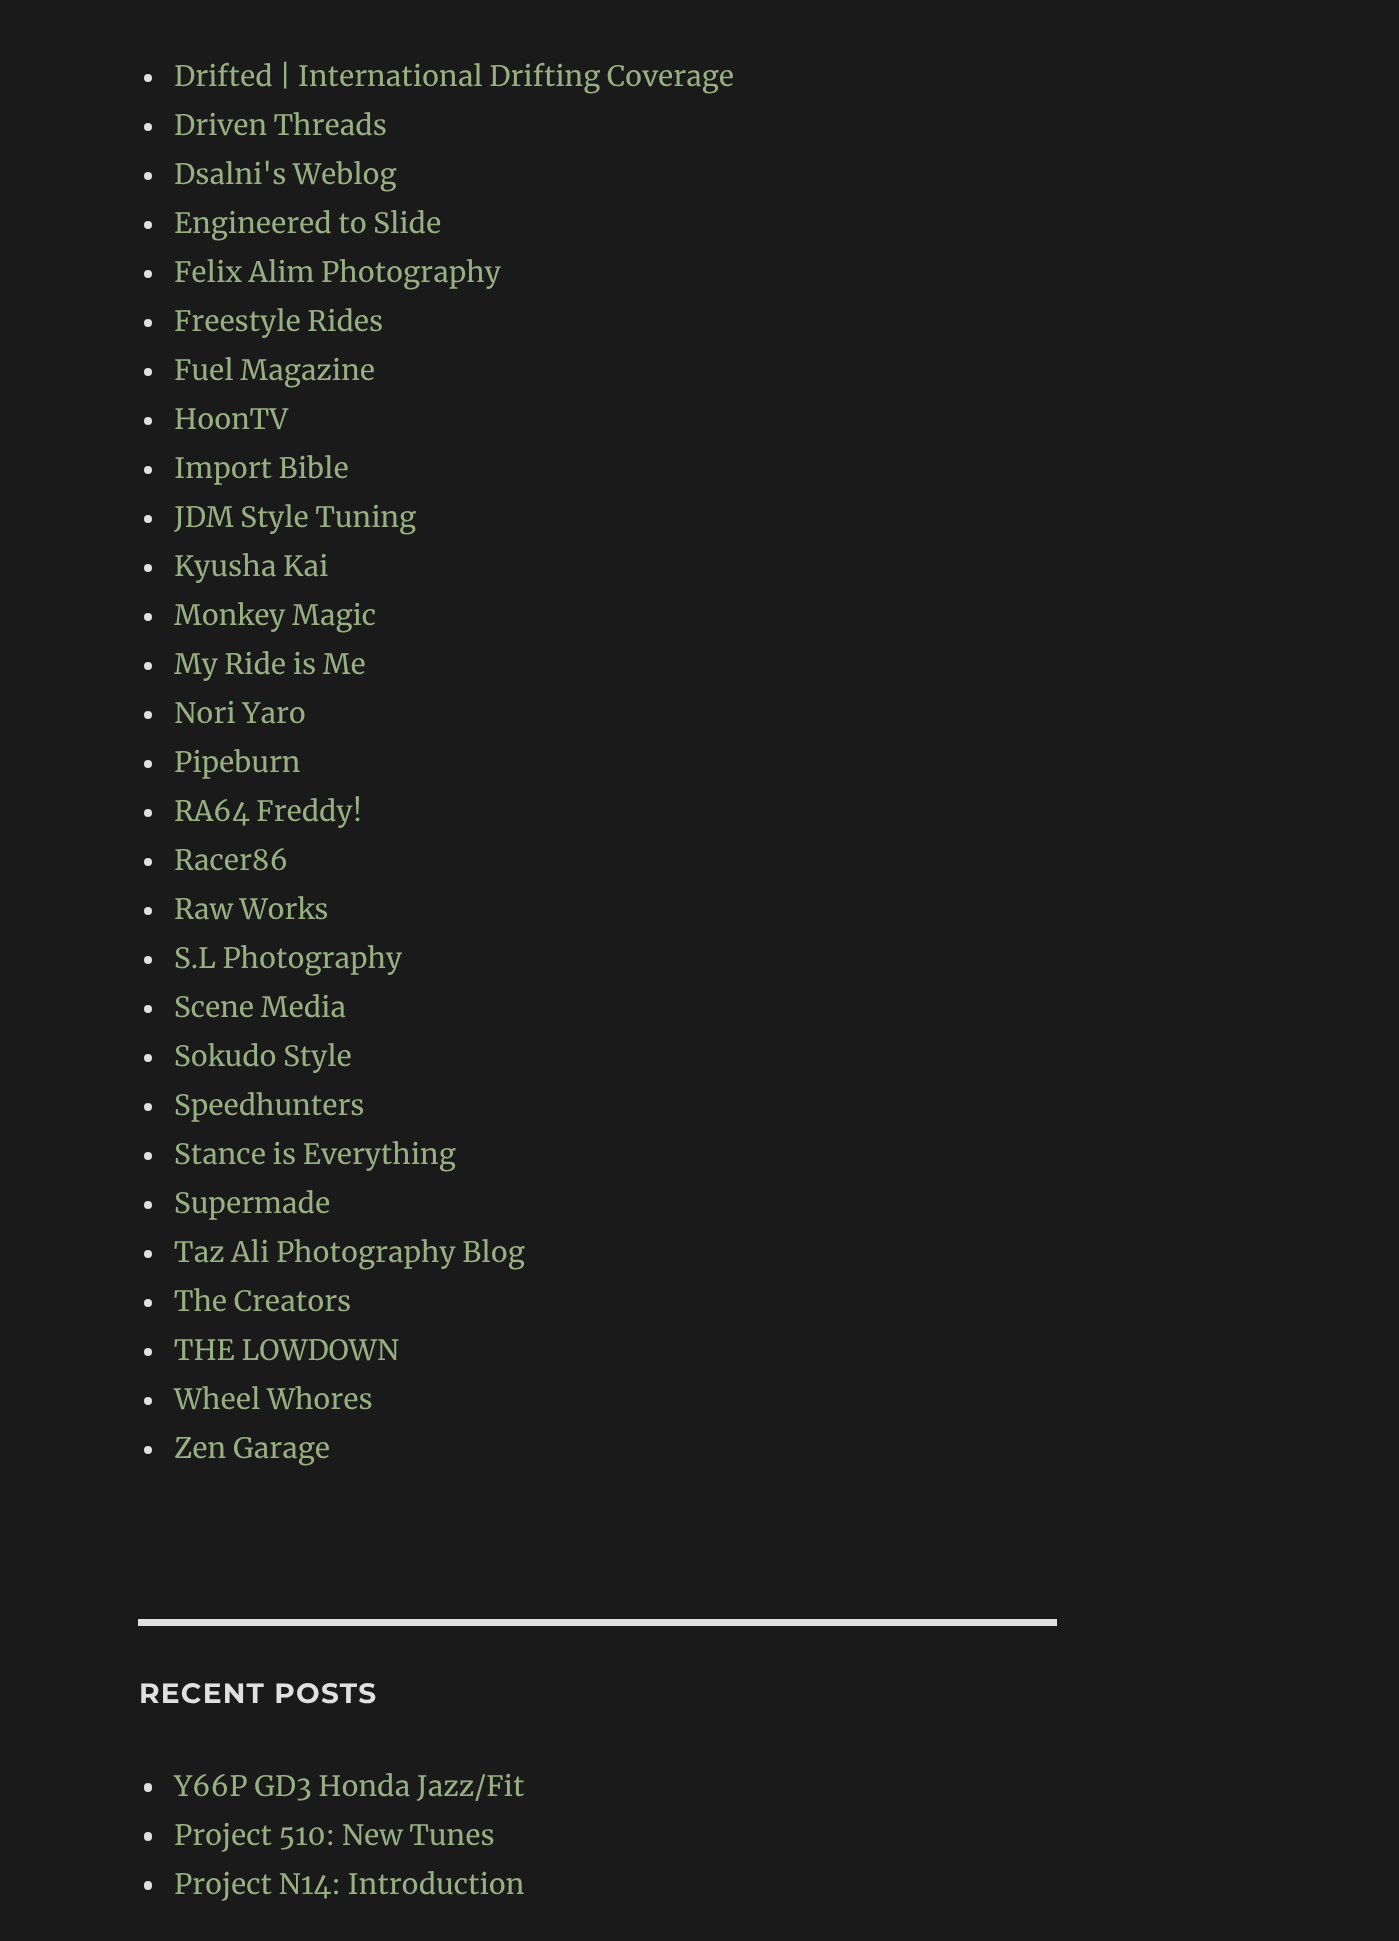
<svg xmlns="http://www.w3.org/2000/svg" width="1399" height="1941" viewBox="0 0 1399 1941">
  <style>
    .t1 { font: 28px Merriweather; fill: #96b081; }
    .t2 { font: 100 28px Montserrat; letter-spacing: 1.25px; fill: #e0e0e0; }
  </style>
  <rect width="100%" height="100%" fill="#1a1a1a"/>
  <circle cx="148" cy="78" r="4" fill="#e0e0e0"/>
  <text x="174" y="86" class="t1">Drifted | International Drifting Coverage</text>
  <circle cx="148" cy="127" r="4" fill="#e0e0e0"/>
  <text x="174" y="135" class="t1">Driven Threads</text>
  <circle cx="148" cy="176" r="4" fill="#e0e0e0"/>
  <text x="174" y="184" class="t1">Dsalni's Weblog</text>
  <circle cx="148" cy="225" r="4" fill="#e0e0e0"/>
  <text x="174" y="233" class="t1">Engineered to Slide</text>
  <circle cx="148" cy="274" r="4" fill="#e0e0e0"/>
  <text x="174" y="282" class="t1">Felix Alim Photography</text>
  <circle cx="148" cy="323" r="4" fill="#e0e0e0"/>
  <text x="174" y="331" class="t1">Freestyle Rides</text>
  <circle cx="148" cy="372" r="4" fill="#e0e0e0"/>
  <text x="174" y="380" class="t1">Fuel Magazine</text>
  <circle cx="148" cy="421" r="4" fill="#e0e0e0"/>
  <text x="174" y="429" class="t1">HoonTV</text>
  <circle cx="148" cy="470" r="4" fill="#e0e0e0"/>
  <text x="174" y="478" class="t1">Import Bible</text>
  <circle cx="148" cy="519" r="4" fill="#e0e0e0"/>
  <text x="174" y="527" class="t1">JDM Style Tuning</text>
  <circle cx="148" cy="568" r="4" fill="#e0e0e0"/>
  <text x="174" y="576" class="t1">Kyusha Kai</text>
  <circle cx="148" cy="617" r="4" fill="#e0e0e0"/>
  <text x="174" y="625" class="t1">Monkey Magic</text>
  <circle cx="148" cy="666" r="4" fill="#e0e0e0"/>
  <text x="174" y="674" class="t1">My Ride is Me</text>
  <circle cx="148" cy="715" r="4" fill="#e0e0e0"/>
  <text x="174" y="723" class="t1">Nori Yaro</text>
  <circle cx="148" cy="764" r="4" fill="#e0e0e0"/>
  <text x="174" y="772" class="t1">Pipeburn</text>
  <circle cx="148" cy="813" r="4" fill="#e0e0e0"/>
  <text x="174" y="821" class="t1">RA64 Freddy!</text>
  <circle cx="148" cy="862" r="4" fill="#e0e0e0"/>
  <text x="174" y="870" class="t1">Racer86</text>
  <circle cx="148" cy="911" r="4" fill="#e0e0e0"/>
  <text x="174" y="919" class="t1">Raw Works</text>
  <circle cx="148" cy="960" r="4" fill="#e0e0e0"/>
  <text x="174" y="968" class="t1">S.L Photography</text>
  <circle cx="148" cy="1009" r="4" fill="#e0e0e0"/>
  <text x="174" y="1017" class="t1">Scene Media</text>
  <circle cx="148" cy="1058" r="4" fill="#e0e0e0"/>
  <text x="174" y="1066" class="t1">Sokudo Style</text>
  <circle cx="148" cy="1107" r="4" fill="#e0e0e0"/>
  <text x="174" y="1115" class="t1">Speedhunters</text>
  <circle cx="148" cy="1156" r="4" fill="#e0e0e0"/>
  <text x="174" y="1164" class="t1">Stance is Everything</text>
  <circle cx="148" cy="1205" r="4" fill="#e0e0e0"/>
  <text x="174" y="1213" class="t1">Supermade</text>
  <circle cx="148" cy="1254" r="4" fill="#e0e0e0"/>
  <text x="174" y="1262" class="t1">Taz Ali Photography Blog</text>
  <circle cx="148" cy="1303" r="4" fill="#e0e0e0"/>
  <text x="174" y="1311" class="t1">The Creators</text>
  <circle cx="148" cy="1352" r="4" fill="#e0e0e0"/>
  <text x="174" y="1360" class="t1">THE LOWDOWN</text>
  <circle cx="148" cy="1401" r="4" fill="#e0e0e0"/>
  <text x="174" y="1409" class="t1">Wheel Whores</text>
  <circle cx="148" cy="1450" r="4" fill="#e0e0e0"/>
  <text x="174" y="1458" class="t1">Zen Garage</text>
  <rect x="138" y="1619" width="919" height="7" fill="#e0e0e0"/>
  <text x="139" y="1703" class="t2">RECENT POSTS</text>
  <rect x="144" y="1783" width="8" height="9" rx="4" fill="#e0e0e0"/>
  <text x="174" y="1796" class="t1">Y66P GD3 Honda Jazz/Fit</text>
  <rect x="144" y="1832" width="8" height="9" rx="4" fill="#e0e0e0"/>
  <text x="174" y="1845" class="t1">Project 510: New Tunes</text>
  <rect x="144" y="1881" width="8" height="9" rx="4" fill="#e0e0e0"/>
  <text x="174" y="1894" class="t1">Project N14: Introduction</text>
</svg>
